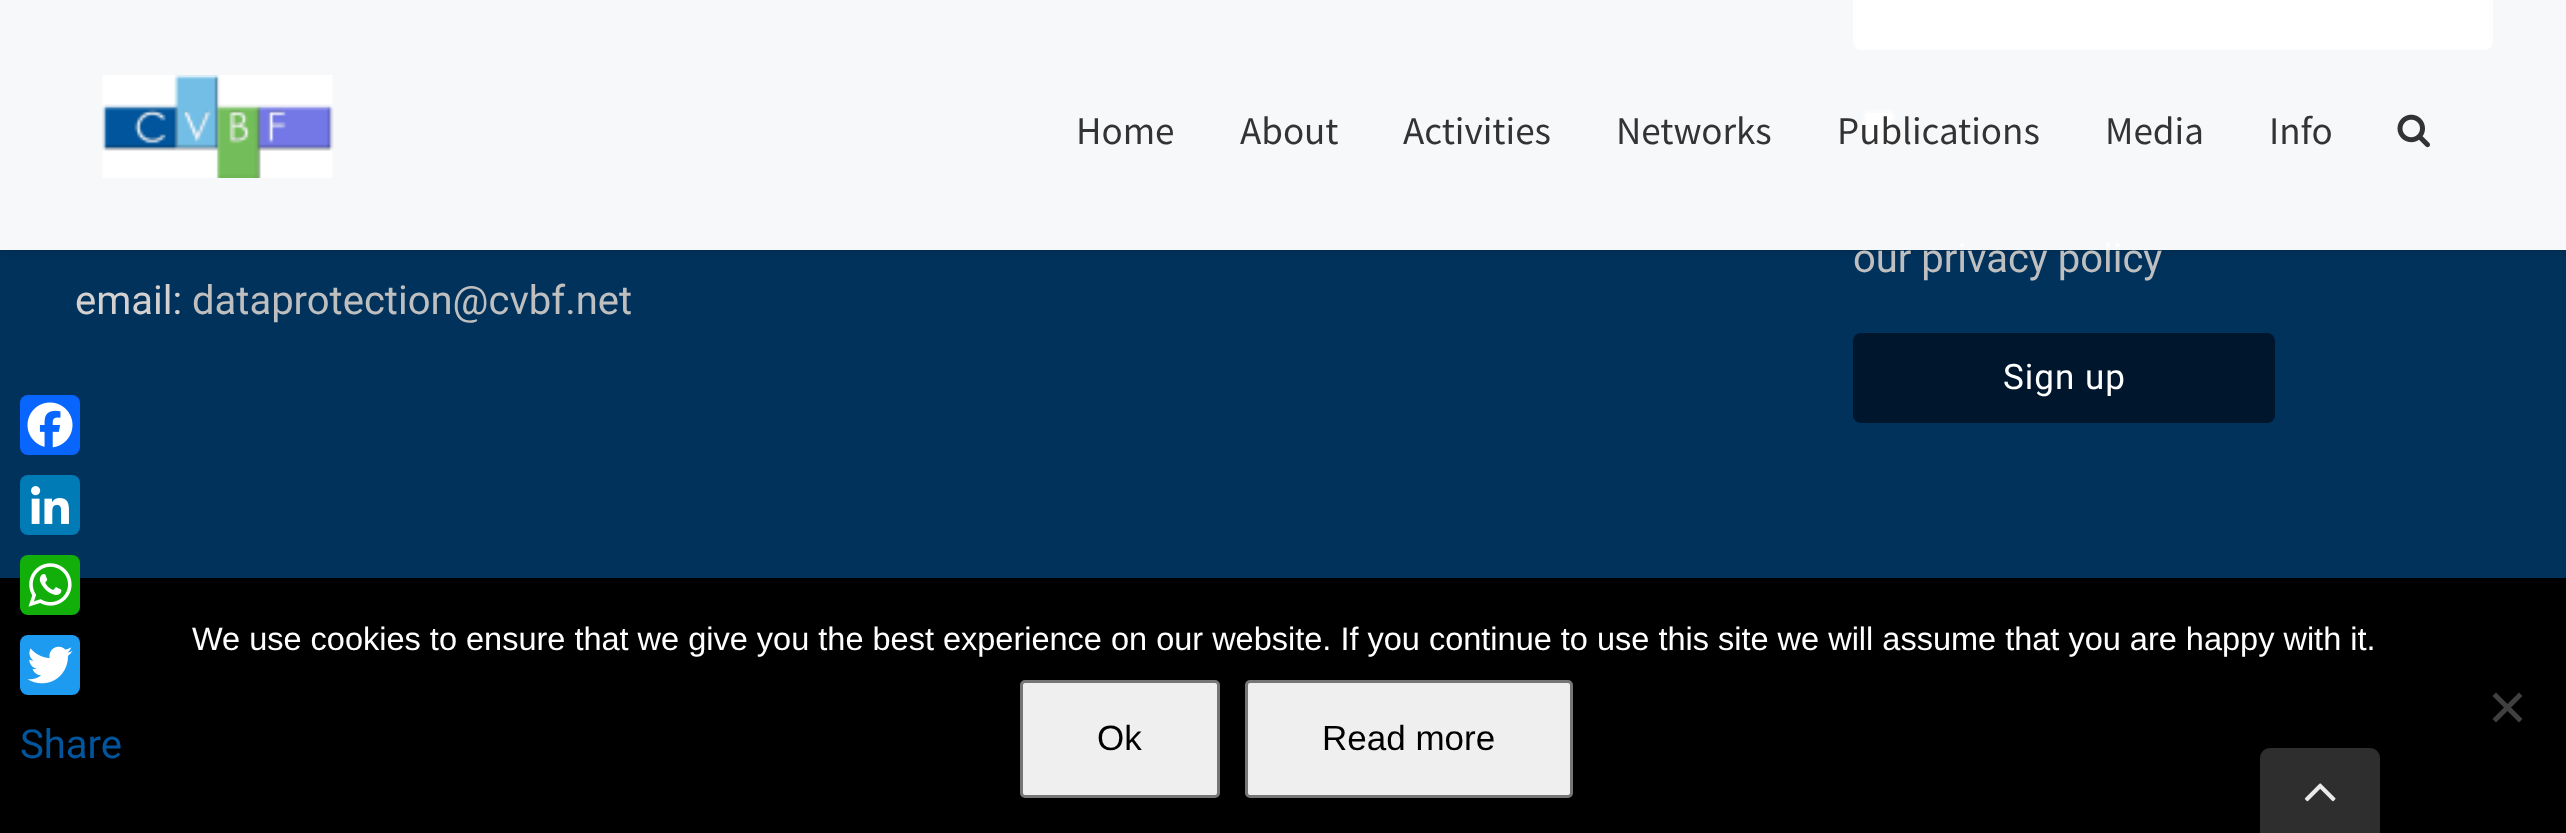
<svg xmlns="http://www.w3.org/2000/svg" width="2566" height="833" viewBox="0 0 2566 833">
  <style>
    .t1 { font: 40px Roboto; fill: #bfbfbf; }
    .t2 { font: 35px Noto Sans JP; fill: #333; }
    .t3 { font: 40px Roboto; fill: #d6d1d1; }
    .t4 { font: 35px Roboto; letter-spacing: 1px; fill: #fff; }
    .t5 { font: 40px Roboto; fill: #00559c; }
    .t6 { font: 32.5px Liberation Sans; fill: #fff; }
    .t7 { font: 35px Liberation Sans; fill: #000; }
  </style>
  <defs>
    <clipPath id="clip1"><rect x="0" y="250" width="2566" height="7"/></clipPath>
  </defs>
  <rect width="100%" height="100%" fill="#00325c"/>
  <rect x="1854.5" y="-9.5" width="637" height="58" rx="6.5" fill="#fff" stroke="#d2d2d2" stroke-width="3"/>
  <rect x="1864.5" y="111.5" width="29" height="30" rx="3.5" fill="#fff" stroke="#767676" stroke-width="3"/>
  <g clip-path="url(#clip1)">
    <rect x="0" y="3" width="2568" height="250" fill="#0000001f" filter="blur(4px)"/>
  </g>
  <text x="1853" y="272" class="t1">our privacy policy</text>
  <rect x="0" y="0" width="2566" height="250" fill="#fffffff7"/>
  <image x="102" y="75" width="232" height="103" href="images/1.png"/>
  <text x="1076" y="144" class="t2">Home</text>
  <text x="1240" y="144" class="t2">About</text>
  <text x="1403" y="144" class="t2">Activities</text>
  <text x="1616" y="144" class="t2">Networks</text>
  <text x="1837" y="144" class="t2">Publications</text>
  <text x="2105" y="144" class="t2">Media</text>
  <text x="2269" y="144" class="t2">Info</text>
  <image x="2397" y="114" width="33" height="34" href="images/2.png"/>
  <text x="75" y="314" class="t3">email:</text>
  <text x="192" y="314" class="t1">dataprotection@cvbf.net</text>
  <rect x="1853" y="333" width="422" height="90" rx="8" fill="#00162d"/>
  <text x="2003" y="389" class="t4">Sign up</text>
  <rect x="20" y="395" width="60" height="60" rx="8" fill="#0866ff"/>
  <image x="27" y="402" width="46" height="46" href="images/3.png"/>
  <rect x="20" y="475" width="60" height="60" rx="8" fill="#007bb5"/>
  <image x="31" y="486" width="38" height="38" href="images/4.png"/>
  <rect x="0" y="578" width="2566" height="255" fill="#000"/>
  <rect x="20" y="555" width="60" height="60" rx="8" fill="#12af0a"/>
  <image x="28" y="563" width="44" height="44" href="images/5.png"/>
  <rect x="20" y="635" width="60" height="60" rx="8" fill="#1d9bf0"/>
  <image x="27" y="646" width="46" height="38" href="images/6.png"/>
  <text x="20" y="758" class="t5">Share</text>
  <text x="192" y="650" class="t6">We use cookies to ensure that we give you the best experience on our website. If you continue to use this site we will assume that you are happy with it.</text>
  <path d="M2519 692.5L2522.5 696L2496 722.5L2492.5 719Z" fill="#404040"/>
  <path d="M2492.5 696L2496 692.5L2522.5 719L2519 722.5Z" fill="#404040"/>
  <rect x="1021.5" y="681.5" width="197" height="115" rx="3.5" fill="#efefef" stroke="#767676" stroke-width="3"/>
  <text x="1097" y="750" class="t7">Ok</text>
  <rect x="1246.5" y="681.5" width="325" height="115" rx="3.5" fill="#efefef" stroke="#767676" stroke-width="3"/>
  <text x="1322" y="750" class="t7">Read more</text>
  <path d="M2270 748H2370C2375.5 748 2380 752.5 2380 758V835H2260V758C2260 752.5 2264.5 748 2270 748Z" fill="#2e2e2e"/>
  <image x="2304" y="783" width="32" height="19" href="images/7.png"/>
</svg>
